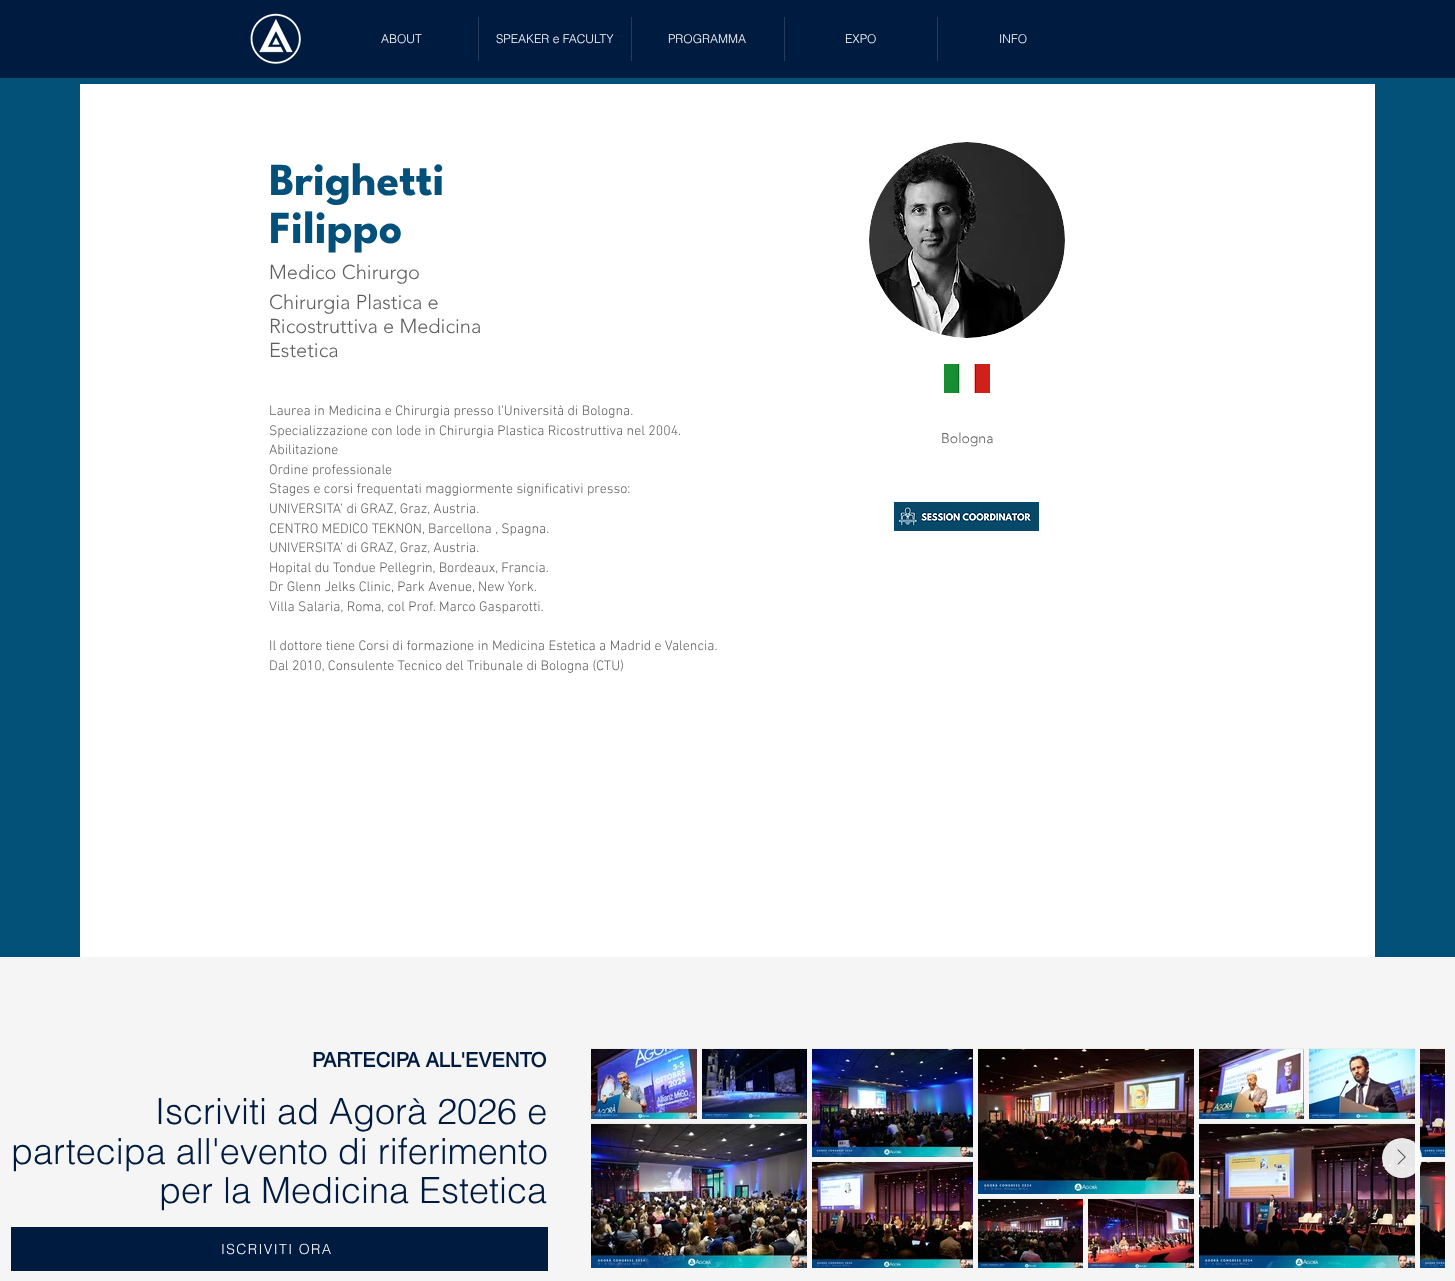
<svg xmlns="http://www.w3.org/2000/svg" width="1455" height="1281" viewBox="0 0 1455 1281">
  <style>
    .t1 { font: 300 12px helvetica; fill: #fff; }
    .t2 { font: bold 46px League Spartan; fill: #03517a; }
    .t3 { font: 300 20px 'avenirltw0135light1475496'; fill: #605e5e; }
    .t4 { font: 300 14px 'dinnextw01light'; fill: #605e5e; }
    .t5 { font: 300 14px 'avenirltw0135light1475496'; fill: #605e5e; }
    .t6 { font: bold 20px helvetica; fill: #001b40; }
    .t7 { font: 300 36px helvetica; fill: #001b40; }
    .t8 { font: 300 14px helvetica; letter-spacing: 1.4px; fill: #fff; }
  </style>
  <rect width="100%" height="100%" fill="#035079"/>
  <rect x="0" y="0" width="1455" height="78" fill="#001b40"/>
  <image x="250" y="13" width="52" height="51" href="images/1.png"/>
  <text x="381" y="43" class="t1">ABOUT</text>
  <rect x="478" y="17" width="1" height="44" fill="#243b5b"/>
  <text x="496" y="43" class="t1">SPEAKER e FACULTY</text>
  <rect x="631" y="17" width="1" height="44" fill="#243b5b"/>
  <text x="668" y="43" class="t1">PROGRAMMA</text>
  <rect x="784" y="17" width="1" height="44" fill="#243b5b"/>
  <text x="845" y="43" class="t1">EXPO</text>
  <rect x="937" y="17" width="1" height="44" fill="#243b5b"/>
  <text x="999" y="43" class="t1">INFO</text>
  <rect x="80" y="84" width="1295" height="873" fill="#fff"/>
  <text x="269" y="195" class="t2">Brighetti</text>
  <text x="269" y="243" class="t2">Filippo</text>
  <text x="269" y="279" class="t3">Medico Chirurgo</text>
  <text x="269" y="309" class="t3">Chirurgia Plastica e</text>
  <text x="269" y="333" class="t3">Ricostruttiva e Medicina</text>
  <text x="269" y="357" class="t3">Estetica</text>
  <text x="269" y="415" class="t4">Laurea in Medicina e Chirurgia presso l’Università di Bologna.</text>
  <text x="269" y="435" class="t4">Specializzazione con lode in Chirurgia Plastica Ricostruttiva nel 2004.</text>
  <text x="269" y="454" class="t4">Abilitazione</text>
  <text x="269" y="474" class="t4">Ordine professionale</text>
  <text x="269" y="493" class="t4">Stages e corsi frequentati maggiormente significativi presso:</text>
  <text x="269" y="513" class="t4">UNIVERSITA’ di GRAZ, Graz, Austria.</text>
  <text x="269" y="533" class="t4">CENTRO MEDICO TEKNON, Barcellona , Spagna.</text>
  <text x="269" y="552" class="t4">UNIVERSITA’ di GRAZ, Graz, Austria.</text>
  <text x="269" y="572" class="t4">Hopital du Tondue Pellegrin, Bordeaux, Francia.</text>
  <text x="269" y="591" class="t4">Dr Glenn Jelks Clinic, Park Avenue, New York.</text>
  <text x="269" y="611" class="t4">Villa Salaria, Roma, col Prof. Marco Gasparotti.</text>
  <text x="269" y="650" class="t4">Il dottore tiene Corsi di formazione in Medicina Estetica a Madrid e Valencia.</text>
  <text x="269" y="670" class="t4">Dal 2010, Consulente Tecnico del Tribunale di Bologna (CTU)</text>
  <image x="869" y="142" width="196" height="196" href="images/2.png"/>
  <image x="944" y="364" width="46" height="29" href="images/3.png"/>
  <text x="941" y="443" class="t5">Bologna</text>
  <image x="894" y="502" width="145" height="29" href="images/4.png"/>
  <rect x="0" y="957" width="1455" height="324" fill="#f5f5f5"/>
  <text x="312" y="1067" class="t6">PARTECIPA ALL'EVENTO</text>
  <rect x="591" y="1048" width="106" height="1" fill="#edede4"/>
  <image x="591" y="1049" width="106" height="70" href="images/5.png"/>
  <rect x="702" y="1048" width="105" height="1" fill="#edede4"/>
  <image x="702" y="1049" width="105" height="70" href="images/6.png"/>
  <rect x="591" y="1123" width="216" height="1" fill="#edede4"/>
  <image x="591" y="1124" width="216" height="144" href="images/7.png"/>
  <rect x="812" y="1048" width="161" height="1" fill="#edede4"/>
  <image x="812" y="1049" width="161" height="108" href="images/8.png"/>
  <rect x="812" y="1161" width="161" height="1" fill="#edede4"/>
  <image x="812" y="1162" width="161" height="106" href="images/9.png"/>
  <rect x="978" y="1048" width="216" height="1" fill="#edede4"/>
  <image x="978" y="1049" width="216" height="145" href="images/10.png"/>
  <rect x="978" y="1198" width="105" height="1" fill="#edede4"/>
  <image x="978" y="1199" width="105" height="69" href="images/11.png"/>
  <rect x="1088" y="1198" width="106" height="1" fill="#edede4"/>
  <image x="1088" y="1199" width="106" height="69" href="images/12.png"/>
  <rect x="1199" y="1048" width="105" height="1" fill="#edede4"/>
  <image x="1199" y="1049" width="105" height="70" href="images/13.png"/>
  <rect x="1309" y="1048" width="106" height="1" fill="#edede4"/>
  <image x="1309" y="1049" width="106" height="70" href="images/14.png"/>
  <rect x="1199" y="1123" width="216" height="1" fill="#edede4"/>
  <image x="1199" y="1124" width="216" height="144" href="images/15.png"/>
  <rect x="1420" y="1048" width="25" height="1" fill="#edede4"/>
  <image x="1420" y="1049" width="25" height="108" href="images/16.png"/>
  <rect x="1420" y="1161" width="25" height="1" fill="#edede4"/>
  <image x="1420" y="1162" width="25" height="106" href="images/17.png"/>
  <circle cx="1402" cy="1158" r="20" fill="#ffffffe6"/>
  <image x="1397" y="1149" width="9" height="16" href="images/18.png"/>
  <text x="155" y="1124" class="t7">Iscriviti ad Agorà 2026 e</text>
  <text x="11" y="1164" class="t7">partecipa all'evento di riferimento</text>
  <text x="159" y="1203" class="t7">per la Medicina Estetica</text>
  <rect x="11" y="1227" width="537" height="44" fill="#001b40"/>
  <text x="221" y="1254" class="t8">ISCRIVITI ORA</text>
</svg>
